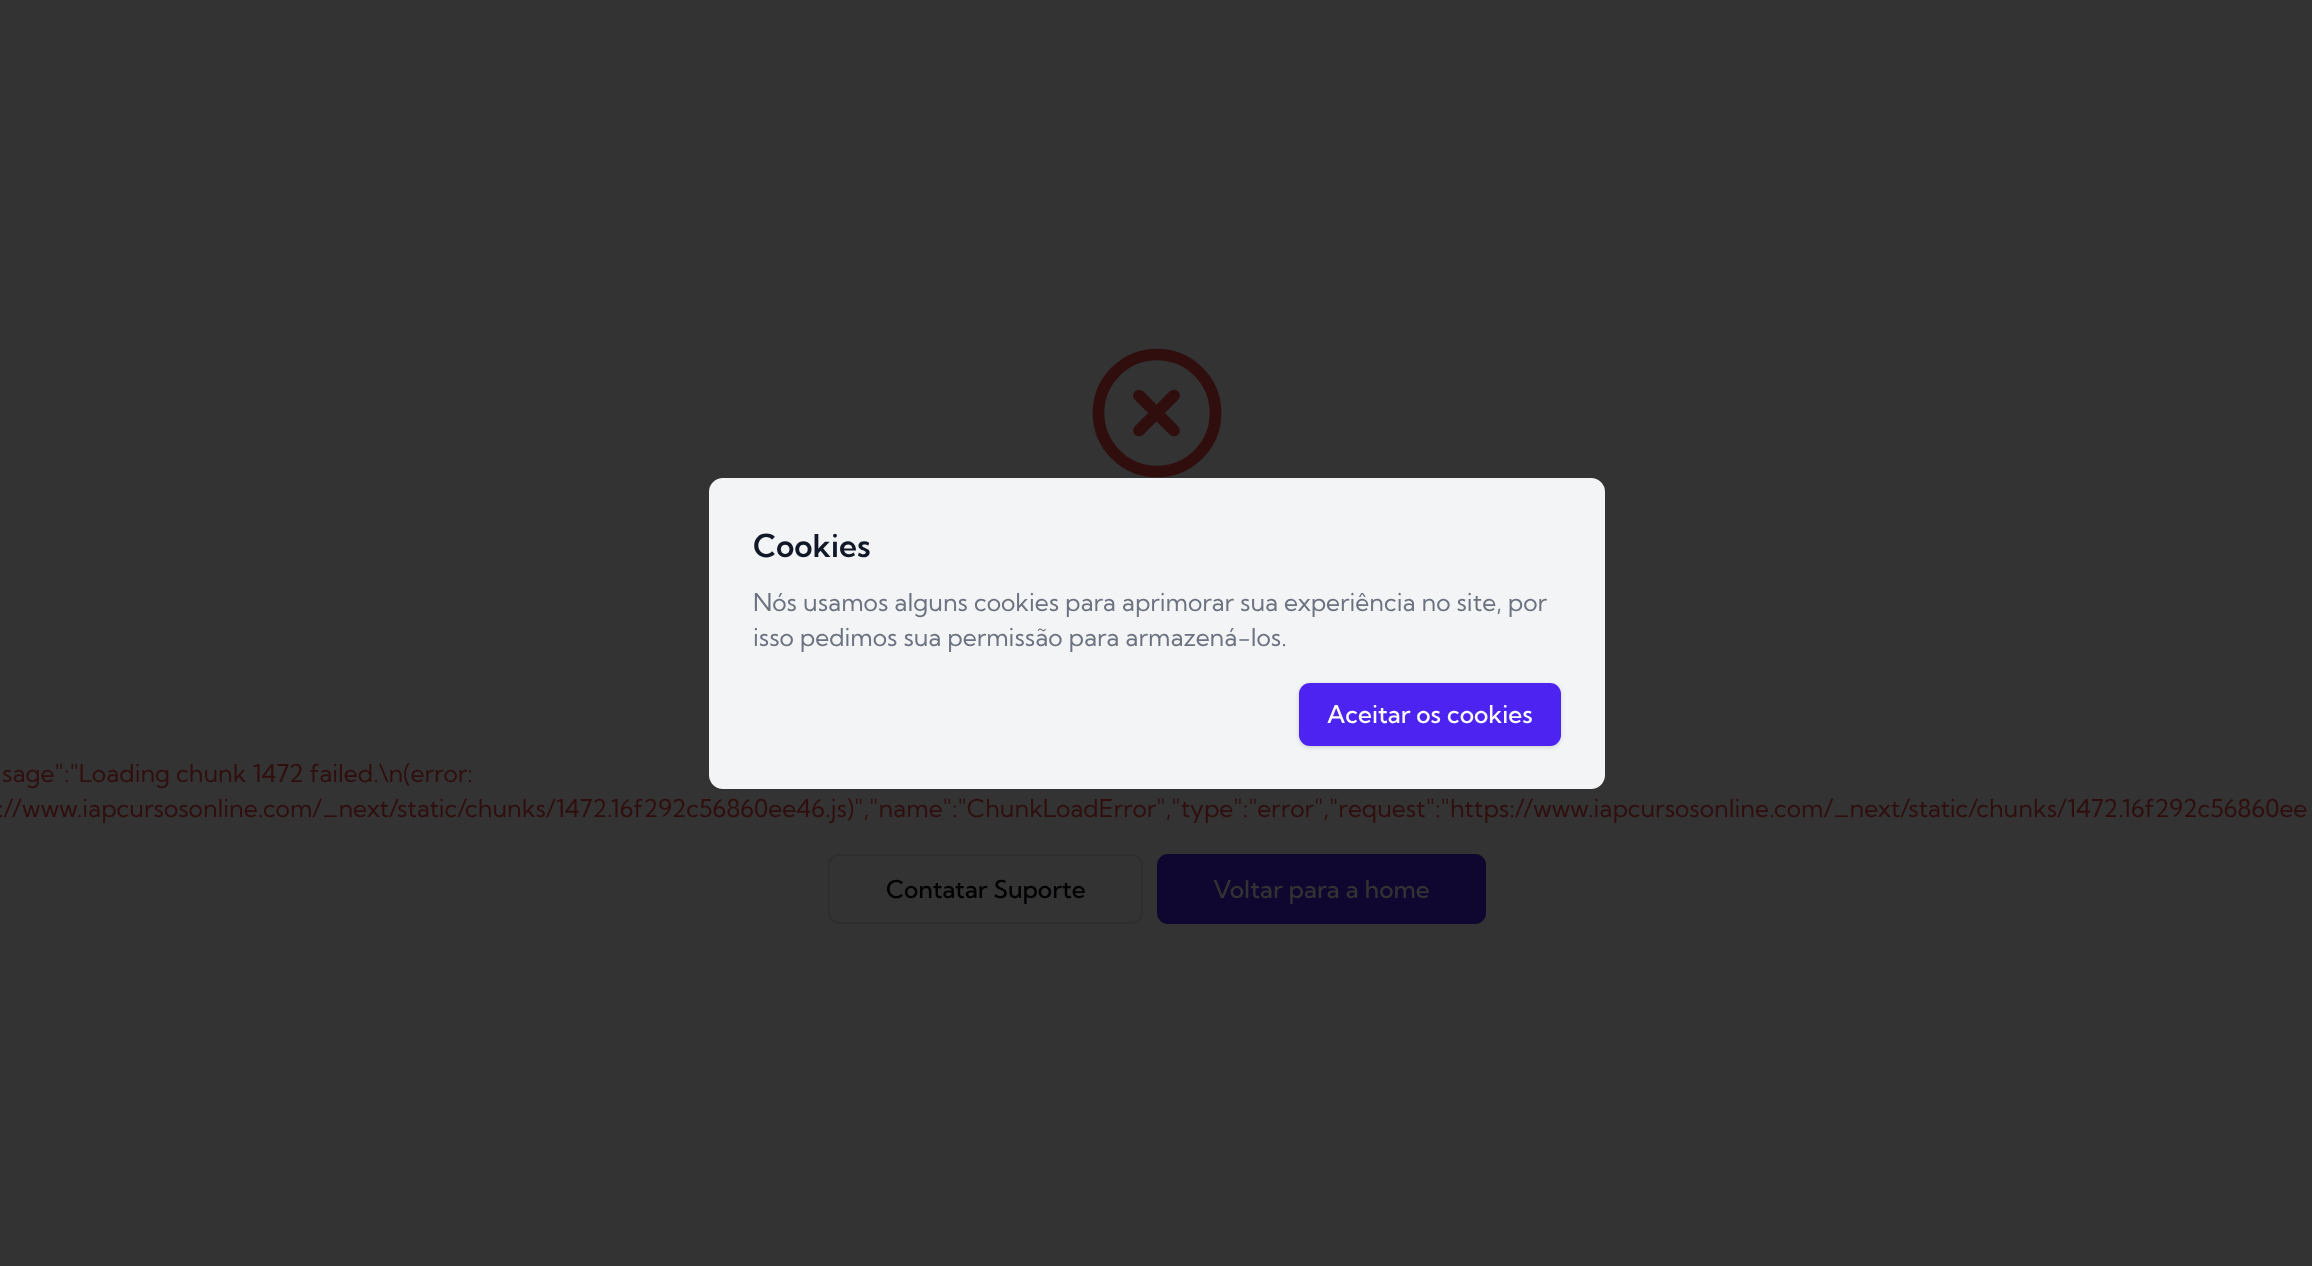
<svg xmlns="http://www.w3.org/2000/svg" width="2312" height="1266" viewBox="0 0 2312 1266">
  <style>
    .t1 { font: 600 31.5px Kumbh Sans; fill: #111827; }
    .t2 { font: 24.5px Kumbh Sans; fill: #6b7280; }
    .t3 { font: 500 24.5px Kumbh Sans; fill: #f9fafb; }
    .t4 { font: 24.5px Kumbh Sans; fill: #300e0e; }
    .t5 { font: 500 24.5px Kumbh Sans; fill: #010104; }
    .t6 { font: 500 24.5px Kumbh Sans; fill: #323232; }
  </style>
  <rect width="100%" height="100%" fill="#333"/>
  <rect x="710" y="479" width="894" height="309" rx="13" fill="#f3f4f6" stroke="#f3f4f6" stroke-width="2"/>
  <text x="753" y="557" class="t1">Cookies</text>
  <text x="753" y="611" class="t2">Nós usamos alguns cookies para aprimorar sua experiência no site, por</text>
  <text x="753" y="646" class="t2">isso pedimos sua permissão para armazená-los.</text>
  <rect x="1300" y="686" width="259" height="60" rx="9" fill="#0000001a" filter="blur(2px)"/>
  <rect x="1299" y="684" width="262" height="63" rx="11" fill="#0000001a" filter="blur(2.5px)"/>
  <rect x="1299" y="683" width="262" height="63" rx="11" fill="#4d23f2"/>
  <text x="1327" y="723" class="t3">Aceitar os cookies</text>
  <circle cx="1157" cy="413" r="58.5" fill="none" stroke="#300e0e" stroke-width="11.7"/>
  <path d="M1174 395.5L1139 430.5M1139 395.5L1174 430.5" fill="none" stroke="#300e0e" stroke-width="11.7" stroke-linecap="round" stroke-linejoin="round"/>
  <text x="2" y="782" class="t4">sage":"Loading chunk 1472 failed.\n(error:</text>
  <text x="-2" y="817" class="t4">://www.iapcursosonline.com/_next/static/chunks/1472.16f292c56860ee46.js)","name":"ChunkLoadError","type":"error","request":"https://www.iapcursosonline.com/_next/static/chunks/1472.16f292c56860ee</text>
  <rect x="829" y="855" width="313" height="68" rx="10" fill="none" stroke="#2e2e2f" stroke-width="2"/>
  <text x="886" y="898" class="t5">Contatar Suporte</text>
  <rect x="1157" y="854" width="329" height="70" rx="11" fill="#0f0730"/>
  <text x="1213" y="898" class="t6">Voltar para a home</text>
</svg>
